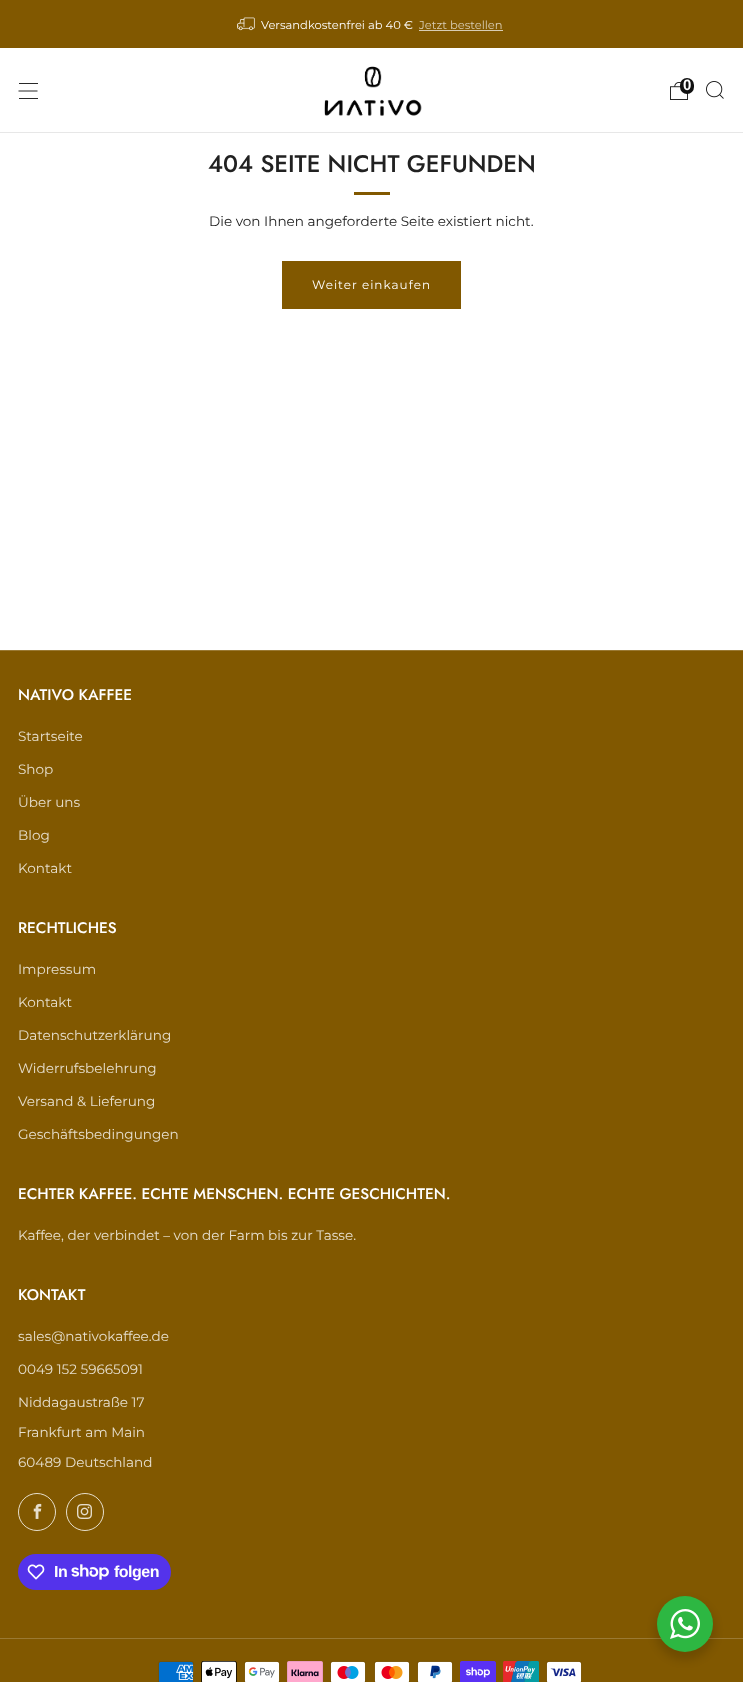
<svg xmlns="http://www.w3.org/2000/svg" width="743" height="1682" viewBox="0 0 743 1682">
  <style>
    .t1 { font: 11.5px Montserrat; fill: #fff; }
    .t2 { font: 11.5px Montserrat; fill: #d9cdb3; }
    .t3 { font: bold 15px Liberation Sans; fill: #fff; }
    .t4 { font: 500 24px Jost; fill: #212121; }
    .t5 { font: 13.6px Montserrat; fill: #212121; }
    .t6 { font: 12px Montserrat; letter-spacing: 1px; fill: #fff; }
    .t7 { font: 500 15.3px Jost; fill: #fff; }
    .t8 { font: 13.6px Montserrat; fill: #e6decc; }
    .t9 { font: bold 16px Liberation Sans; letter-spacing: -0.5px; fill: #fff; }
  </style>
  <rect width="100%" height="100%" fill="#fff"/>
  <rect x="0" y="0" width="743" height="48" fill="#815800"/>
  <image x="237" y="17" width="18" height="14" href="images/1.png"/>
  <text x="261" y="29" class="t1">Versandkostenfrei ab 40 €</text>
  <text x="419" y="29" class="t2">Jetzt bestellen</text>
  <rect x="419" y="30" width="84" height="1" fill="#d9cdb3"/>
  <rect x="0" y="132" width="743" height="1" fill="#e7e7e7"/>
  <rect x="19" y="83" width="19" height="1" fill="#292929"/>
  <path d="M18.5 91H37.5" fill="none" stroke="#111" stroke-width="0.9"/>
  <rect x="19" y="98" width="19" height="1" fill="#292929"/>
  <image x="324" y="66" width="98" height="50" href="images/2.png"/>
  <image x="670" y="82" width="18" height="18" href="images/3.png"/>
  <rect x="680" y="78" width="14" height="16" rx="7" fill="#111"/>
  <text x="683" y="90" class="t3">0</text>
  <image x="706" y="81" width="18" height="18" href="images/4.png"/>
  <text x="208" y="172" class="t4">404 SEITE NICHT GEFUNDEN</text>
  <rect x="354" y="192" width="36" height="3" fill="#815800"/>
  <text x="209" y="226" class="t5">Die von Ihnen angeforderte Seite existiert nicht.</text>
  <rect x="282" y="261" width="179" height="48" fill="#815800"/>
  <text x="312" y="289" class="t6">Weiter einkaufen</text>
  <rect x="0" y="651" width="743" height="1031" fill="#815800"/>
  <rect x="0" y="650" width="743" height="1" fill="#9a7933"/>
  <text x="18" y="700" class="t7">NATIVO KAFFEE</text>
  <text x="18" y="741" class="t8">Startseite</text>
  <text x="18" y="774" class="t8">Shop</text>
  <text x="18" y="807" class="t8">Über uns</text>
  <text x="18" y="840" class="t8">Blog</text>
  <text x="18" y="873" class="t8">Kontakt</text>
  <text x="18" y="933" class="t7">RECHTLICHES</text>
  <text x="18" y="974" class="t8">Impressum</text>
  <text x="18" y="1007" class="t8">Kontakt</text>
  <text x="18" y="1040" class="t8">Datenschutzerklärung</text>
  <text x="18" y="1073" class="t8">Widerrufsbelehrung</text>
  <text x="18" y="1106" class="t8">Versand &amp; Lieferung</text>
  <text x="18" y="1139" class="t8">Geschäftsbedingungen</text>
  <text x="18" y="1199" class="t7">ECHTER KAFFEE. ECHTE MENSCHEN. ECHTE GESCHICHTEN.</text>
  <text x="18" y="1240" class="t8">Kaffee, der verbindet – von der Farm bis zur Tasse.</text>
  <text x="18" y="1300" class="t7">KONTAKT</text>
  <text x="18" y="1341" class="t8">sales@nativokaffee.de</text>
  <text x="18" y="1374" class="t8">0049 152 59665091</text>
  <text x="18" y="1407" class="t8">Niddagaustraße 17</text>
  <text x="18" y="1437" class="t8">Frankfurt am Main</text>
  <text x="18" y="1467" class="t8">60489 Deutschland</text>
  <circle cx="37" cy="1512" r="18.5" fill="none" stroke="#e6decc"/>
  <image x="33" y="1503" width="9" height="16" href="images/5.png"/>
  <circle cx="85" cy="1512" r="18.5" fill="none" stroke="#e6decc"/>
  <image x="77" y="1504" width="15" height="15" href="images/6.png"/>
  <rect x="18" y="1554" width="153" height="36" rx="18" fill="#5433eb"/>
  <image x="27" y="1564" width="18" height="16" href="images/7.png"/>
  <text x="54" y="1577" class="t9">In</text>
  <image x="71" y="1564" width="38" height="16" href="images/8.png"/>
  <text x="114" y="1577" class="t9">folgen</text>
  <rect x="0" y="1638" width="743" height="1" fill="#9a7933"/>
  <image x="158" y="1661" width="36" height="21" href="images/9.png"/>
  <image x="201" y="1661" width="36" height="21" href="images/10.png"/>
  <image x="244" y="1661" width="36" height="21" href="images/11.png"/>
  <image x="287" y="1661" width="36" height="21" href="images/12.png"/>
  <image x="330" y="1661" width="36" height="21" href="images/13.png"/>
  <image x="374" y="1661" width="36" height="21" href="images/14.png"/>
  <image x="417" y="1661" width="36" height="21" href="images/15.png"/>
  <image x="460" y="1661" width="36" height="21" href="images/16.png"/>
  <image x="503" y="1661" width="36" height="21" href="images/17.png"/>
  <image x="546" y="1661" width="36" height="21" href="images/18.png"/>
  <rect x="655" y="1600" width="60" height="60" rx="30" fill="#00000024" filter="blur(4px)"/>
  <circle cx="685" cy="1624" r="28" fill="#2db742"/>
  <image x="670" y="1609" width="30" height="30" href="images/19.png"/>
</svg>
